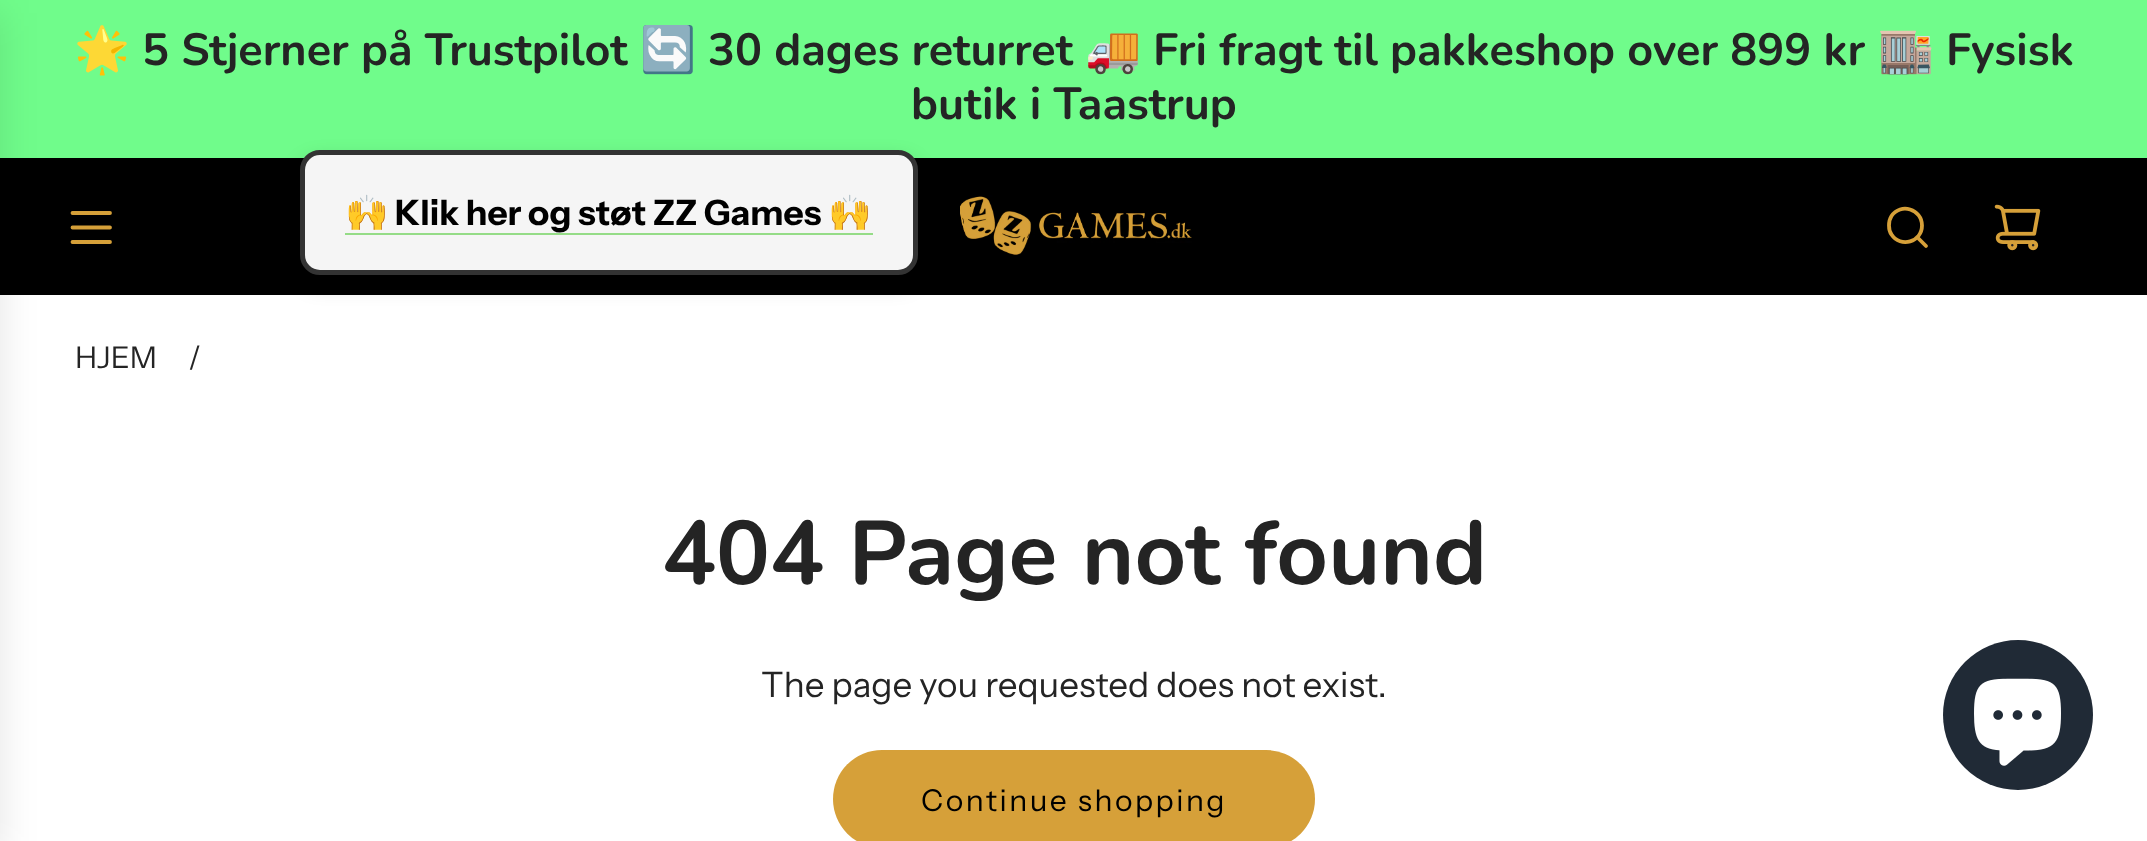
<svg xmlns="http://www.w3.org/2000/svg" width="2147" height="841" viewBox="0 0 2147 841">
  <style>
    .t1 { font: bold 45px Noto Color Emoji; fill: #242424; }
    .t2 { font: bold 45px Nunito; fill: #242424; }
    .t3 { font: bold 35px Noto Color Emoji; fill: #000; }
    .t4 { font: bold 35px Instrument Sans; fill: #000; }
    .t5 { font: 30px Instrument Sans; fill: #242424; }
    .t6 { font: bold 90px Nunito; fill: #242424; }
    .t7 { font: 35px Instrument Sans; fill: #242424; }
    .t8 { font: 30px Instrument Sans; letter-spacing: 2.5px; fill: #000; }
  </style>
  <defs>
    <clipPath id="clip1"><rect x="25" y="25" width="2098" height="108"/></clipPath>
  </defs>
  <rect width="100%" height="100%" fill="#fff"/>
  <rect x="0" y="0" width="2147" height="158" fill="#70fc8b"/>
  <g clip-path="url(#clip1)">
    <text x="74" y="65" class="t1">🌟</text>
  </g>
  <text x="142" y="65" class="t2">5 Stjerner på Trustpilot</text>
  <g clip-path="url(#clip1)">
    <text x="640" y="65" class="t1">🔄</text>
  </g>
  <text x="708" y="65" class="t2">30 dages returret</text>
  <g clip-path="url(#clip1)">
    <text x="1085" y="65" class="t1">🚚</text>
  </g>
  <text x="1153" y="65" class="t2">Fri fragt til pakkeshop over 899 kr</text>
  <g clip-path="url(#clip1)">
    <text x="1878" y="65" class="t1">🏬</text>
  </g>
  <text x="1946" y="65" class="t2">Fysisk</text>
  <text x="911" y="119" class="t2">butik i Taastrup</text>
  <rect x="0" y="158" width="2147" height="137" fill="#000"/>
  <rect x="-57" y="13" width="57" height="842" fill="#0000001a" filter="blur(19px)"/>
  <path d="M72.5 213H110M72.5 227.5H110M72.5 242H110" fill="none" stroke="#d6a039" stroke-width="3.8" stroke-linecap="round" stroke-linejoin="round"/>
  <image x="960" y="195" width="232" height="60" href="images/1.png"/>
  <path d="M1918 238L1926 246M1889 225.5C1889 228.5 1889.5 232 1891.5 234.5C1900.5 248.5 1922 242 1922 225.5C1922 209 1900.5 202.5 1891.5 216C1889.5 219 1889 222 1889 225.5Z" fill="none" stroke="#d6a039" stroke-width="3.8" stroke-linecap="round" stroke-linejoin="round"/>
  <image x="1994" y="204" width="47" height="47" href="images/2.png"/>
  <rect x="300" y="160" width="618" height="125" rx="20" fill="#00000033" filter="blur(10px)"/>
  <rect x="302.5" y="152.5" width="613" height="120" rx="17.5" fill="#f5f5f5" stroke="#333" stroke-width="5"/>
  <text x="345" y="225" class="t3">🙌</text>
  <text x="395" y="225" class="t4">Klik her og støt ZZ Games</text>
  <rect x="345" y="233" width="528" height="2" fill="#95dc87"/>
  <text x="828" y="225" class="t3">🙌</text>
  <text x="75" y="368" class="t5">HJEM</text>
  <text x="188" y="368" class="t5">/</text>
  <text x="662" y="584" class="t6">404 Page not found</text>
  <text x="761" y="697" class="t7">The page you requested does not exist.</text>
  <rect x="833" y="750" width="482" height="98" rx="49" fill="#d6a039"/>
  <text x="921" y="811" class="t8">Continue shopping</text>
  <circle cx="2018" cy="715" r="75" fill="#202a36"/>
  <image x="1974" y="678" width="87" height="88" href="images/3.png"/>
</svg>
